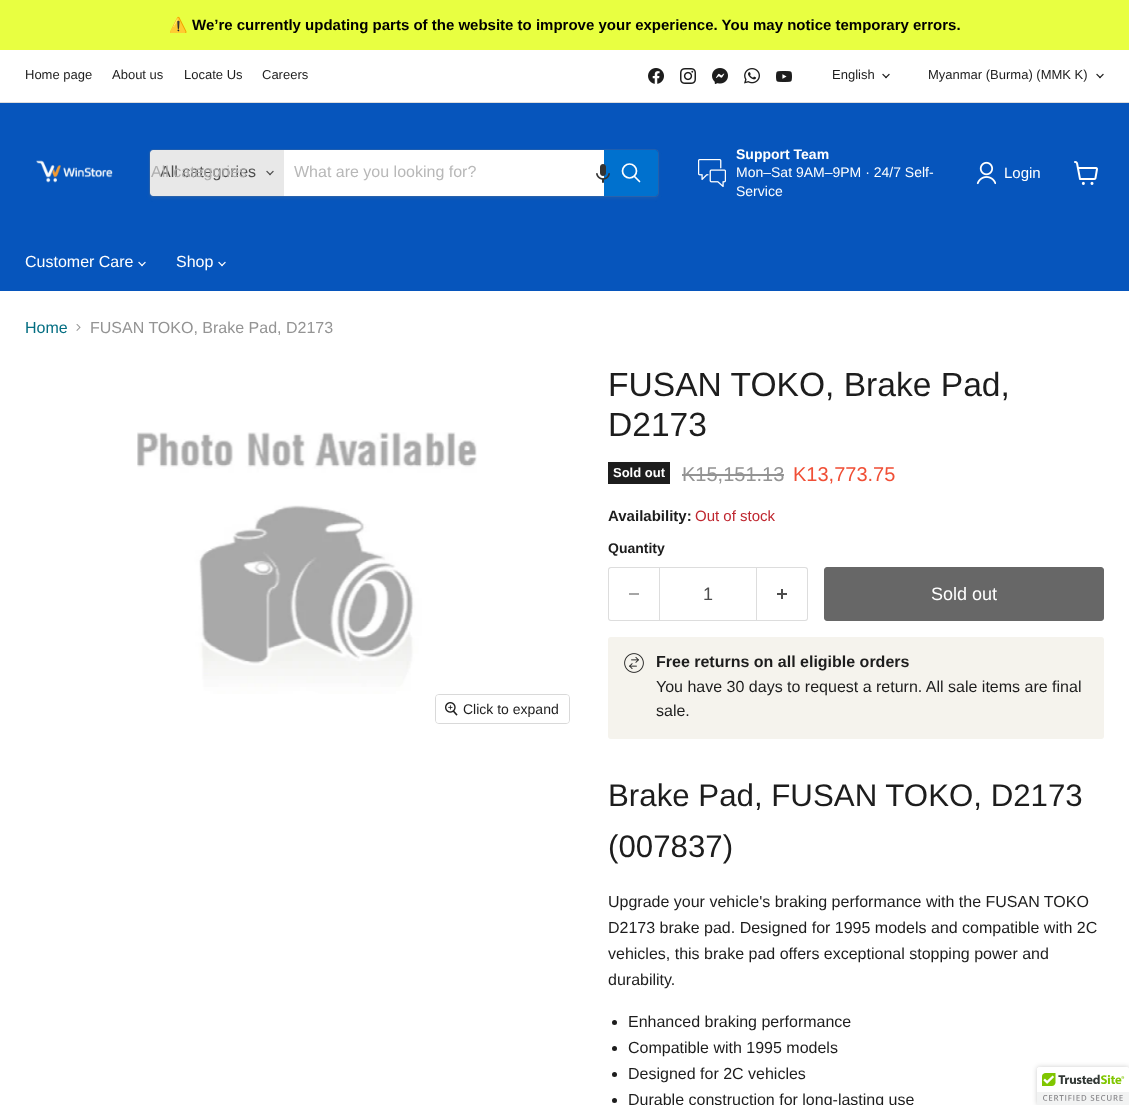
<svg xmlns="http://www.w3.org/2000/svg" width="1129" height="1105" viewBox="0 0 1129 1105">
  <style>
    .t1 { font: bold 15px Noto Color Emoji; fill: #000; }
    .t2 { font: bold 15px Liberation Sans; fill: #000; }
    .t3 { font: 13px Liberation Sans; fill: #1d1d1d; }
    .t4 { font: 16px Liberation Sans; fill: #4d4d4d; }
    .t5 { font: 16px Liberation Sans; fill: #aeaeae; }
    .t6 { font: 16px Liberation Sans; fill: #b8b8b8; }
    .t7 { font: bold 14px Liberation Sans; fill: #fff; }
    .t8 { font: 14px Liberation Sans; fill: #fff; }
    .t9 { font: 15px Liberation Sans; fill: #fff; }
    .t10 { font: 16px Liberation Sans; fill: #fff; }
    .t11 { font: 16px Liberation Sans; fill: #046e82; }
    .t12 { font: 16px Liberation Sans; fill: #949494; }
    .t13 { font: 14px Liberation Sans; fill: #1d1d1d; }
    .t14 { font: 33.6px Liberation Sans; fill: #1d1d1d; }
    .t15 { font: bold 13px Liberation Sans; fill: #fff; }
    .t16 { font: 20px Liberation Sans; fill: #949494; }
    .t17 { font: 20px Liberation Sans; fill: #f04f36; }
    .t18 { font: bold 15px Liberation Sans; fill: #1d1d1d; }
    .t19 { font: 15px Liberation Sans; fill: #bf262f; }
    .t20 { font: bold 14px Liberation Sans; fill: #1d1d1d; }
    .t21 { font: 18px Liberation Sans; fill: #4d4d4d; }
    .t22 { font: 18px Liberation Sans; fill: #fff; }
    .t23 { font: bold 16px Liberation Sans; fill: #1d1d1d; }
    .t24 { font: 16px Liberation Sans; fill: #1d1d1d; }
    .t25 { font: 31.25px Liberation Sans; fill: #1d1d1d; }
  </style>
  <rect width="100%" height="100%" fill="#fff"/>
  <rect x="0" y="0" width="1129" height="50" fill="#e8ff41"/>
  <text x="169" y="30" class="t1">⚠️</text>
  <text x="192" y="30" class="t2">We’re currently updating parts of the website to improve your experience. You may notice temporary errors.</text>
  <rect x="0" y="102" width="1129" height="1" fill="#ddd"/>
  <text x="25" y="79" class="t3">Home page</text>
  <text x="112" y="79" class="t3">About us</text>
  <text x="184" y="79" class="t3">Locate Us</text>
  <text x="262" y="79" class="t3">Careers</text>
  <image x="648" y="68" width="16" height="16" href="images/1.png"/>
  <image x="680" y="68" width="16" height="16" href="images/2.png"/>
  <image x="712" y="68" width="16" height="16" href="images/3.png"/>
  <image x="744" y="68" width="16" height="16" href="images/4.png"/>
  <image x="776" y="71" width="16" height="11" href="images/5.png"/>
  <text x="832" y="79" class="t3">English</text>
  <image x="882" y="73" width="8" height="6" href="images/6.png"/>
  <text x="928" y="79" class="t3">Myanmar (Burma) (MMK K)</text>
  <image x="1096" y="73" width="8" height="6" href="images/6.png"/>
  <rect x="0" y="103" width="1129" height="188" fill="#0655bc"/>
  <image x="36" y="160" width="77" height="23" href="images/7.png"/>
  <rect x="149" y="151" width="510" height="48" rx="4" fill="#8080801c" filter="blur(1.5px)"/>
  <rect x="149.5" y="149.5" width="509" height="47" rx="3.5" fill="none" stroke="#80808033"/>
  <path d="M153 150H284V196H153C151.5 196 150 194.5 150 193V153C150 151.5 151.5 150 153 150Z" fill="#e8e8e8"/>
  <text x="160" y="177" class="t4">All categories</text>
  <text x="151" y="177" class="t5">All categories</text>
  <image x="266" y="170" width="8" height="6" href="images/8.png"/>
  <rect x="284" y="150" width="320" height="46" fill="#fff"/>
  <text x="294" y="177" class="t6">What are you looking for?</text>
  <path d="M604.5 150.5H655C656.5 150.5 657.5 151.5 657.5 153V193C657.5 194.5 656.5 195.5 655 195.5H604.5Z" fill="#0071ce" stroke="#0071ce"/>
  <image x="596" y="164" width="14" height="19" href="images/9.png"/>
  <path d="M639.5 181.5L634.5 176.5" fill="none" stroke="#fff" stroke-width="1.7" stroke-linecap="round"/>
  <circle cx="629.5" cy="171" r="7" fill="none" stroke="#fff" stroke-width="1.7"/>
  <image x="698" y="159" width="28" height="28" href="images/10.png"/>
  <text x="736" y="159" class="t7">Support Team</text>
  <text x="736" y="177" class="t8">Mon–Sat 9AM–9PM · 24/7 Self-</text>
  <text x="736" y="196" class="t8">Service</text>
  <image x="976" y="161" width="20" height="24" href="images/11.png"/>
  <text x="1004" y="178" class="t9">Login</text>
  <image x="1074" y="161" width="24" height="24" href="images/12.png"/>
  <text x="25" y="267" class="t10">Customer Care</text>
  <image x="138" y="261" width="8" height="6" href="images/13.png"/>
  <text x="176" y="267" class="t10">Shop</text>
  <image x="218" y="261" width="8" height="6" href="images/13.png"/>
  <text x="25" y="333" class="t11">Home</text>
  <image x="76" y="324" width="5" height="7" href="images/14.png"/>
  <text x="90" y="333" class="t12">FUSAN TOKO, Brake Pad, D2173</text>
  <image x="137" y="432" width="340" height="262" href="images/15.png"/>
  <rect x="435.5" y="694.5" width="134" height="29" rx="3.5" fill="none" stroke="#d9d9d9"/>
  <rect x="436" y="695" width="133" height="28" rx="3" fill="#ffffffe6"/>
  <image x="445" y="702" width="13" height="14" href="images/16.png"/>
  <text x="463" y="714" class="t13">Click to expand</text>
  <text x="608" y="396" class="t14">FUSAN TOKO, Brake Pad,</text>
  <text x="608" y="436" class="t14">D2173</text>
  <rect x="608" y="462" width="62" height="22" fill="#1d1d1d"/>
  <text x="613" y="477" class="t15">Sold out</text>
  <text x="682" y="481" class="t16">K15,151.13</text>
  <rect x="682" y="474" width="102" height="2" fill="#949494"/>
  <text x="793" y="481" class="t17">K13,773.75</text>
  <text x="608" y="521" class="t18">Availability:</text>
  <text x="695" y="521" class="t19">Out of stock</text>
  <text x="608" y="553" class="t20">Quantity</text>
  <path d="M611 567H659V621H611C609 621 608 620 608 618V570C608 568 609 567 611 567ZM611 568H659V620H611C610 620 609 619 609 618V570C609 569 610 568 611 568Z" fill="#ddd" fill-rule="evenodd"/>
  <rect x="629" y="593" width="10" height="2" fill="#a6a6a6"/>
  <rect x="659.5" y="567.5" width="97" height="53" fill="none" stroke="#ddd"/>
  <text x="703" y="600" class="t21">1</text>
  <path d="M757 567H805C807 567 808 568 808 570V618C808 620 807 621 805 621H757ZM757 568H805C806 568 807 569 807 570V618C807 619 806 620 805 620H757Z" fill="#ddd" fill-rule="evenodd"/>
  <image x="777" y="589" width="10" height="10" href="images/17.png"/>
  <rect x="824.5" y="567.5" width="279" height="53" rx="2.5" fill="#676767" stroke="#676767"/>
  <text x="931" y="600" class="t22">Sold out</text>
  <rect x="608" y="637" width="496" height="102" rx="3" fill="#f5f3ed"/>
  <image x="624" y="653" width="20" height="20" href="images/18.png"/>
  <text x="656" y="667" class="t23">Free returns on all eligible orders</text>
  <text x="656" y="692" class="t24">You have 30 days to request a return. All sale items are final</text>
  <text x="656" y="716" class="t24">sale.</text>
  <text x="608" y="806" class="t25">Brake Pad, FUSAN TOKO, D2173</text>
  <text x="608" y="857" class="t25">(007837)</text>
  <text x="608" y="907" class="t24">Upgrade your vehicle's braking performance with the FUSAN TOKO</text>
  <text x="608" y="933" class="t24">D2173 brake pad. Designed for 1995 models and compatible with 2C</text>
  <text x="608" y="959" class="t24">vehicles, this brake pad offers exceptional stopping power and</text>
  <text x="608" y="985" class="t24">durability.</text>
  <circle cx="614.5" cy="1022.5" r="2.5" fill="#1d1d1d"/>
  <text x="628" y="1027" class="t24">Enhanced braking performance</text>
  <circle cx="614.5" cy="1048.5" r="2.5" fill="#1d1d1d"/>
  <text x="628" y="1053" class="t24">Compatible with 1995 models</text>
  <circle cx="614.5" cy="1074.5" r="2.5" fill="#1d1d1d"/>
  <text x="628" y="1079" class="t24">Designed for 2C vehicles</text>
  <circle cx="614.5" cy="1100.5" r="2.5" fill="#1d1d1d"/>
  <text x="628" y="1105" class="t24">Durable construction for long-lasting use</text>
  <rect x="1037" y="1067" width="92" height="38" rx="2" fill="#00000033" filter="blur(2.5px)"/>
  <path d="M1039 1067H1129V1105H1037V1069C1037 1068 1038 1067 1039 1067Z" fill="#fff"/>
  <image x="1037" y="1067" width="92" height="38" href="images/19.png"/>
</svg>
